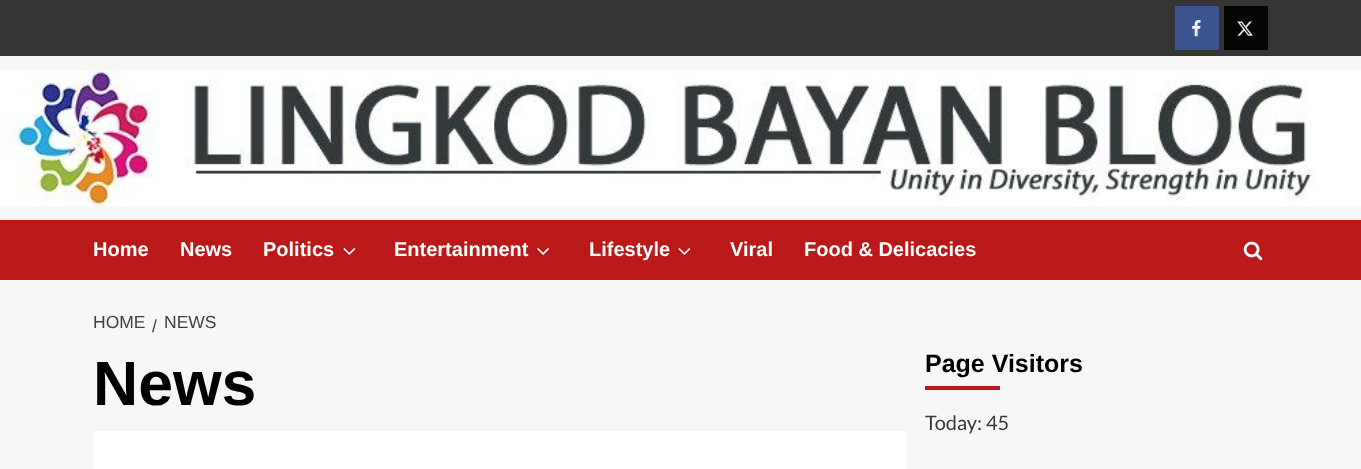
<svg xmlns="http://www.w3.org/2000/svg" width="1361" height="469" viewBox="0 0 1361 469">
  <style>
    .t1 { font: bold 20px Liberation Sans; fill: #fff; }
    .t2 { font: 17.5px Liberation Sans; fill: #404040; }
    .t3 { font: bold 62.5px Liberation Sans; fill: #000; }
    .t4 { font: bold 25px Liberation Sans; fill: #000; }
    .t5 { font: 20px Lato; fill: #3a3a3a; }
  </style>
  <rect width="100%" height="100%" fill="#f7f7f7"/>
  <rect x="0" y="0" width="1361" height="56" fill="#353535"/>
  <rect x="1175" y="6" width="44" height="44" fill="#3a558f"/>
  <image x="1192" y="20" width="9" height="17" href="images/1.png"/>
  <rect x="1224" y="6" width="44" height="44" fill="#050505"/>
  <image x="1237" y="21" width="16" height="15" href="images/2.png"/>
  <image x="0" y="70" width="1361" height="137" href="images/3.png"/>
  <rect x="0" y="220" width="1361" height="60" fill="#bb1919"/>
  <text x="93" y="256" class="t1">Home</text>
  <text x="180" y="256" class="t1">News</text>
  <text x="263" y="256" class="t1">Politics</text>
  <image x="343" y="248" width="13" height="7" href="images/4.png"/>
  <text x="394" y="256" class="t1">Entertainment</text>
  <image x="537" y="248" width="12" height="7" href="images/5.png"/>
  <text x="589" y="256" class="t1">Lifestyle</text>
  <image x="678" y="248" width="13" height="7" href="images/4.png"/>
  <text x="730" y="256" class="t1">Viral</text>
  <text x="804" y="256" class="t1">Food &amp; Delicacies</text>
  <image x="1243" y="241" width="20" height="20" href="images/6.png"/>
  <text x="93" y="328" class="t2">HOME</text>
  <text x="152" y="332" class="t2">/</text>
  <text x="164" y="328" class="t2">NEWS</text>
  <text x="93" y="405" class="t3">News</text>
  <rect x="94" y="431" width="812" height="38" fill="#fff"/>
  <text x="925" y="372" class="t4">Page Visitors</text>
  <rect x="925" y="386" width="75" height="4" fill="#bb1919"/>
  <text x="925" y="430" class="t5">Today: 45</text>
</svg>
